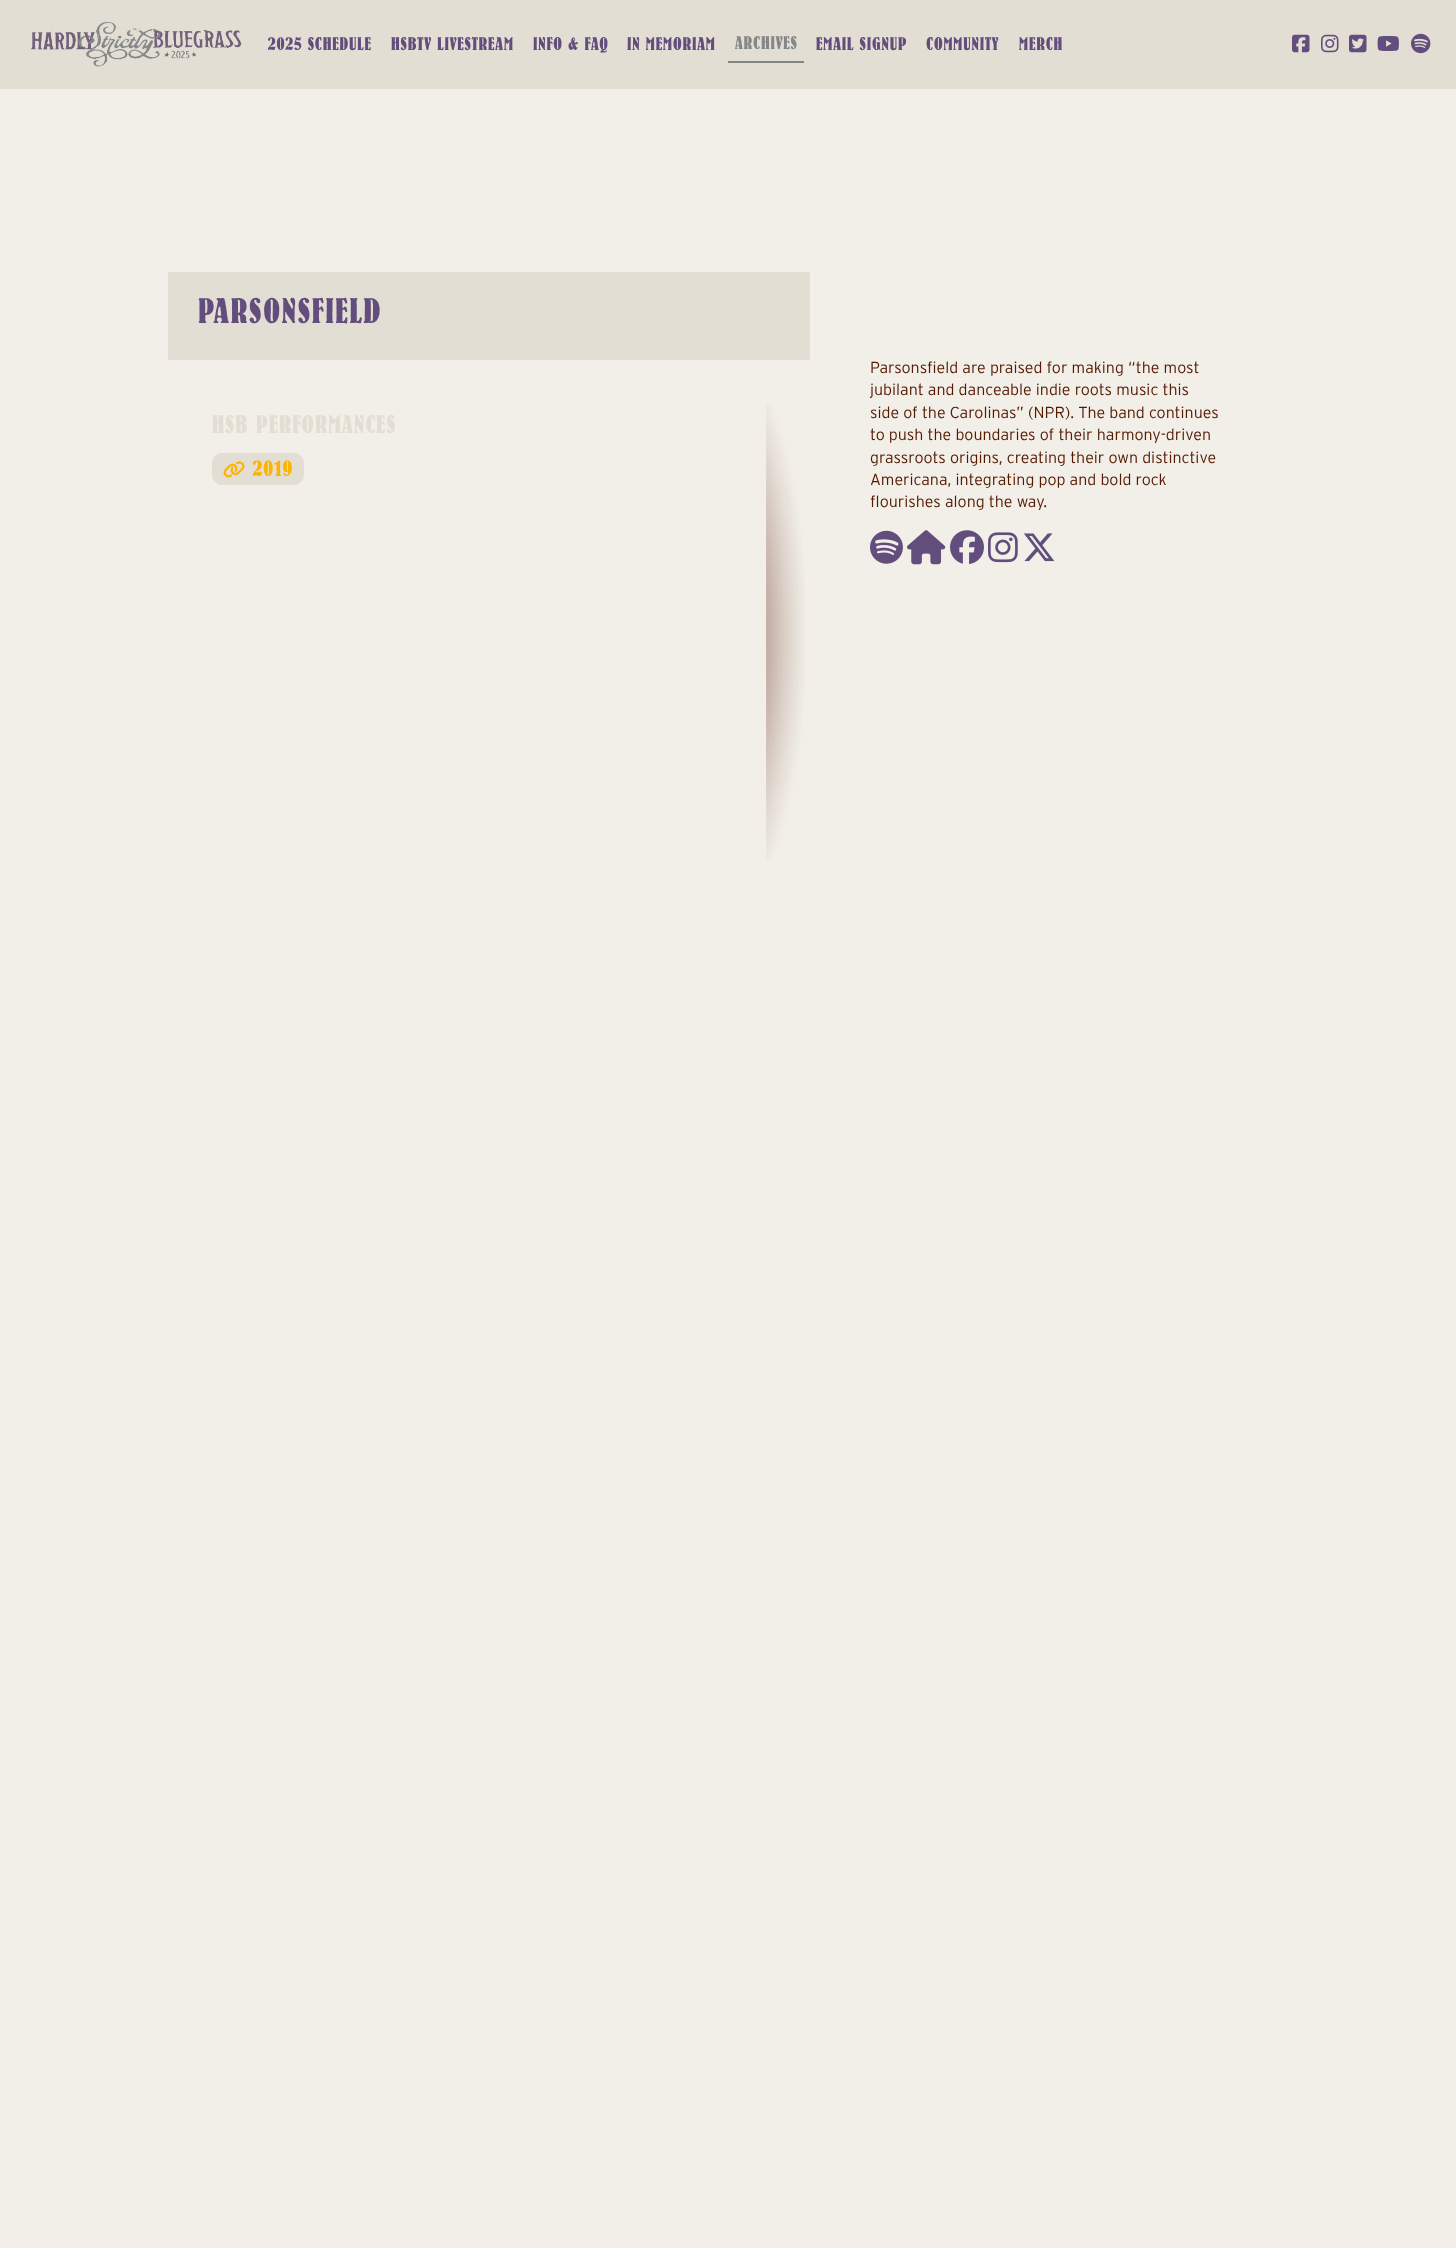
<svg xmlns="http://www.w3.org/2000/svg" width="1456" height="2248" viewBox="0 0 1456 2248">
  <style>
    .t1 { font: bold 18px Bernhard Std; letter-spacing: 0.9px; fill: #624d7d; }
    .t2 { font: bold 18px Bernhard Std; letter-spacing: 0.9px; fill: #848788; }
    .t3 { font: bold 35px Bernhard Std; letter-spacing: 1.75px; fill: #624d7d; }
    .t4 { font: bold 25px Bernhard Std; letter-spacing: 1.25px; fill: #e3ded3; }
    .t5 { font: bold 22px Bernhard Std; letter-spacing: 1px; fill: #feb300; }
    .t6 { font: 300 16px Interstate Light; fill: #551900; }
  </style>
  <rect width="100%" height="100%" fill="#f2efe9"/>
  <rect x="0" y="0" width="1456" height="89" fill="#e3ded3"/>
  <image x="31" y="22" width="211" height="45" href="images/1.png"/>
  <text x="268" y="50" class="t1">2025 SCHEDULE</text>
  <text x="391" y="50" class="t1">HSBTV LIVESTREAM</text>
  <text x="533" y="50" class="t1">INFO &amp; FAQ</text>
  <text x="627" y="50" class="t1">IN MEMORIAM</text>
  <rect x="728" y="61" width="76" height="2" fill="#848788"/>
  <text x="735" y="49" class="t2">ARCHIVES</text>
  <text x="816" y="50" class="t1">EMAIL SIGNUP</text>
  <text x="926" y="50" class="t1">COMMUNITY</text>
  <text x="1019" y="50" class="t1">MERCH</text>
  <image x="1292" y="34" width="18" height="19" href="images/2.png"/>
  <image x="1321" y="34" width="18" height="19" href="images/3.png"/>
  <image x="1349" y="34" width="18" height="19" href="images/4.png"/>
  <image x="1377" y="36" width="22" height="15" href="images/5.png"/>
  <image x="1411" y="33" width="20" height="21" href="images/6.png"/>
  <rect x="168" y="272" width="642" height="88" fill="#e3ded3"/>
  <text x="198" y="323" class="t3">PARSONSFIELD</text>
  <image x="766" y="405" width="39" height="457" href="images/7.png"/>
  <text x="212" y="433" class="t4">HSB PERFORMANCES</text>
  <rect x="212.5" y="453.5" width="91" height="31" rx="9.5" fill="#e3ded3" stroke="#e3ded3"/>
  <image x="223" y="461" width="22" height="17" href="images/8.png"/>
  <text x="253" y="476" class="t5">2019</text>
  <text x="870" y="373" class="t6">Parsonsfield are praised for making “the most</text>
  <text x="870" y="395" class="t6">jubilant and danceable indie roots music this</text>
  <text x="870" y="418" class="t6">side of the Carolinas” (NPR). The band continues</text>
  <text x="870" y="440" class="t6">to push the boundaries of their harmony-driven</text>
  <text x="870" y="463" class="t6">grassroots origins, creating their own distinctive</text>
  <text x="870" y="485" class="t6">Americana, integrating pop and bold rock</text>
  <text x="870" y="507" class="t6">flourishes along the way.</text>
  <image x="870" y="530" width="33" height="34" href="images/9.png"/>
  <image x="907" y="530" width="39" height="35" href="images/10.png"/>
  <image x="950" y="530" width="34" height="35" href="images/11.png"/>
  <image x="988" y="532" width="30" height="31" href="images/12.png"/>
  <image x="1024" y="533" width="31" height="29" href="images/13.png"/>
</svg>
